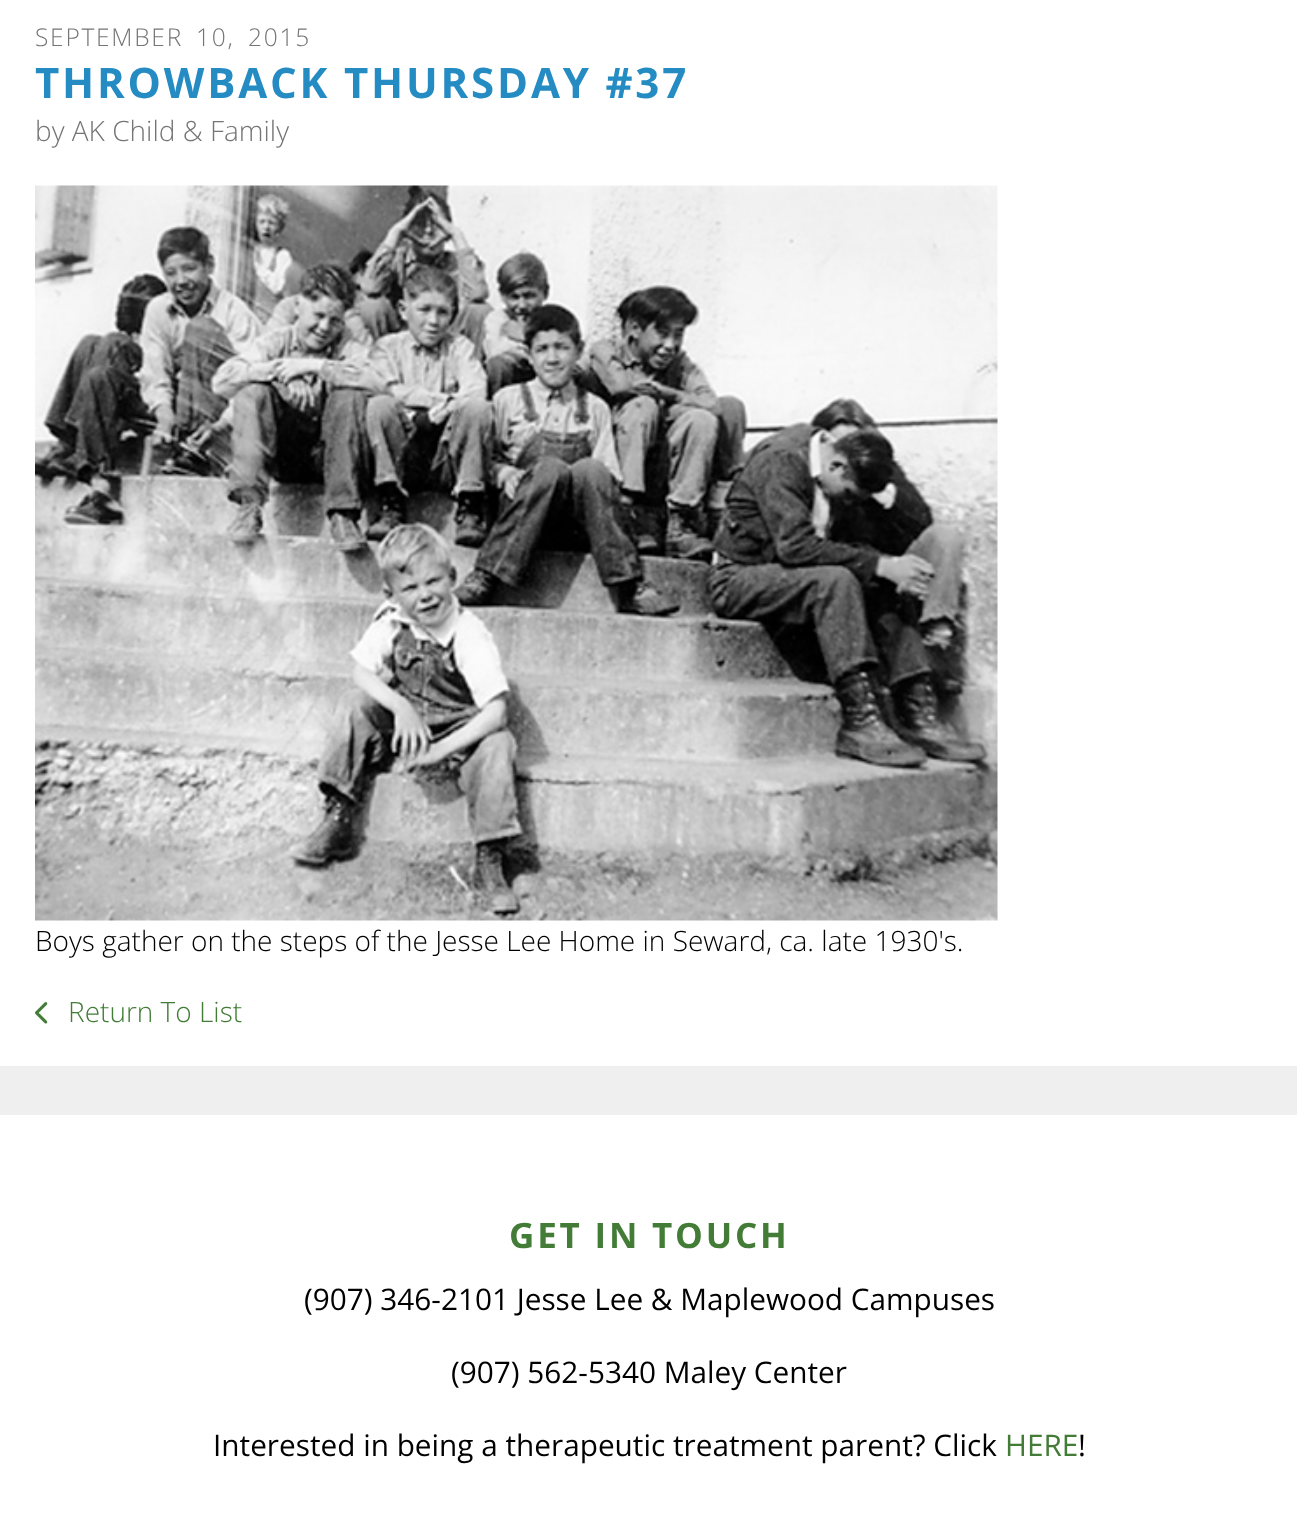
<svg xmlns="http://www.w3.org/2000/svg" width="1297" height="1539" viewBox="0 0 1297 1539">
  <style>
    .t1 { font: 300 24.5px Open Sans; letter-spacing: 1.75px; fill: #757575; }
    .t2 { font: bold 42px Open Sans; letter-spacing: 2.8px; fill: #258cc3; }
    .t3 { font: 300 28px Open Sans; fill: #757575; }
    .t4 { font: 300 28px Open Sans; fill: #000; }
    .t5 { font: 300 28px Open Sans; fill: #427c37; }
    .t6 { font: bold 35px Open Sans; letter-spacing: 2.8px; fill: #427c37; }
    .t7 { font: 29.75px Open Sans; fill: #000; }
    .t8 { font: 29.75px Open Sans; fill: #427c37; }
  </style>
  <rect width="100%" height="100%" fill="#fff"/>
  <text x="35" y="46" class="t1">SEPTEMBER</text>
  <text x="196" y="46" class="t1">10,</text>
  <text x="248" y="46" class="t1">2015</text>
  <text x="35" y="98" class="t2">THROWBACK THURSDAY #37</text>
  <text x="35" y="141" class="t3">by AK Child &amp; Family</text>
  <image x="35" y="185" width="963" height="736" href="images/1.png"/>
  <text x="35" y="951" class="t4">Boys gather on the steps of the Jesse Lee Home in Seward, ca. late 1930's.</text>
  <image x="35" y="1002" width="13" height="22" href="images/2.png"/>
  <text x="68" y="1022" class="t5">Return To List</text>
  <rect x="0" y="1066" width="1297" height="49" fill="#efefef"/>
  <text x="509" y="1248" class="t6">GET IN TOUCH</text>
  <text x="304" y="1310" class="t7">(907) 346-2101 Jesse Lee &amp; Maplewood Campuses</text>
  <text x="451" y="1383" class="t7">(907) 562-5340 Maley Center</text>
  <text x="213" y="1456" class="t7">Interested in being a therapeutic treatment parent? Click</text>
  <text x="1005" y="1456" class="t8">HERE</text>
  <text x="1078" y="1456" class="t7">!</text>
</svg>
